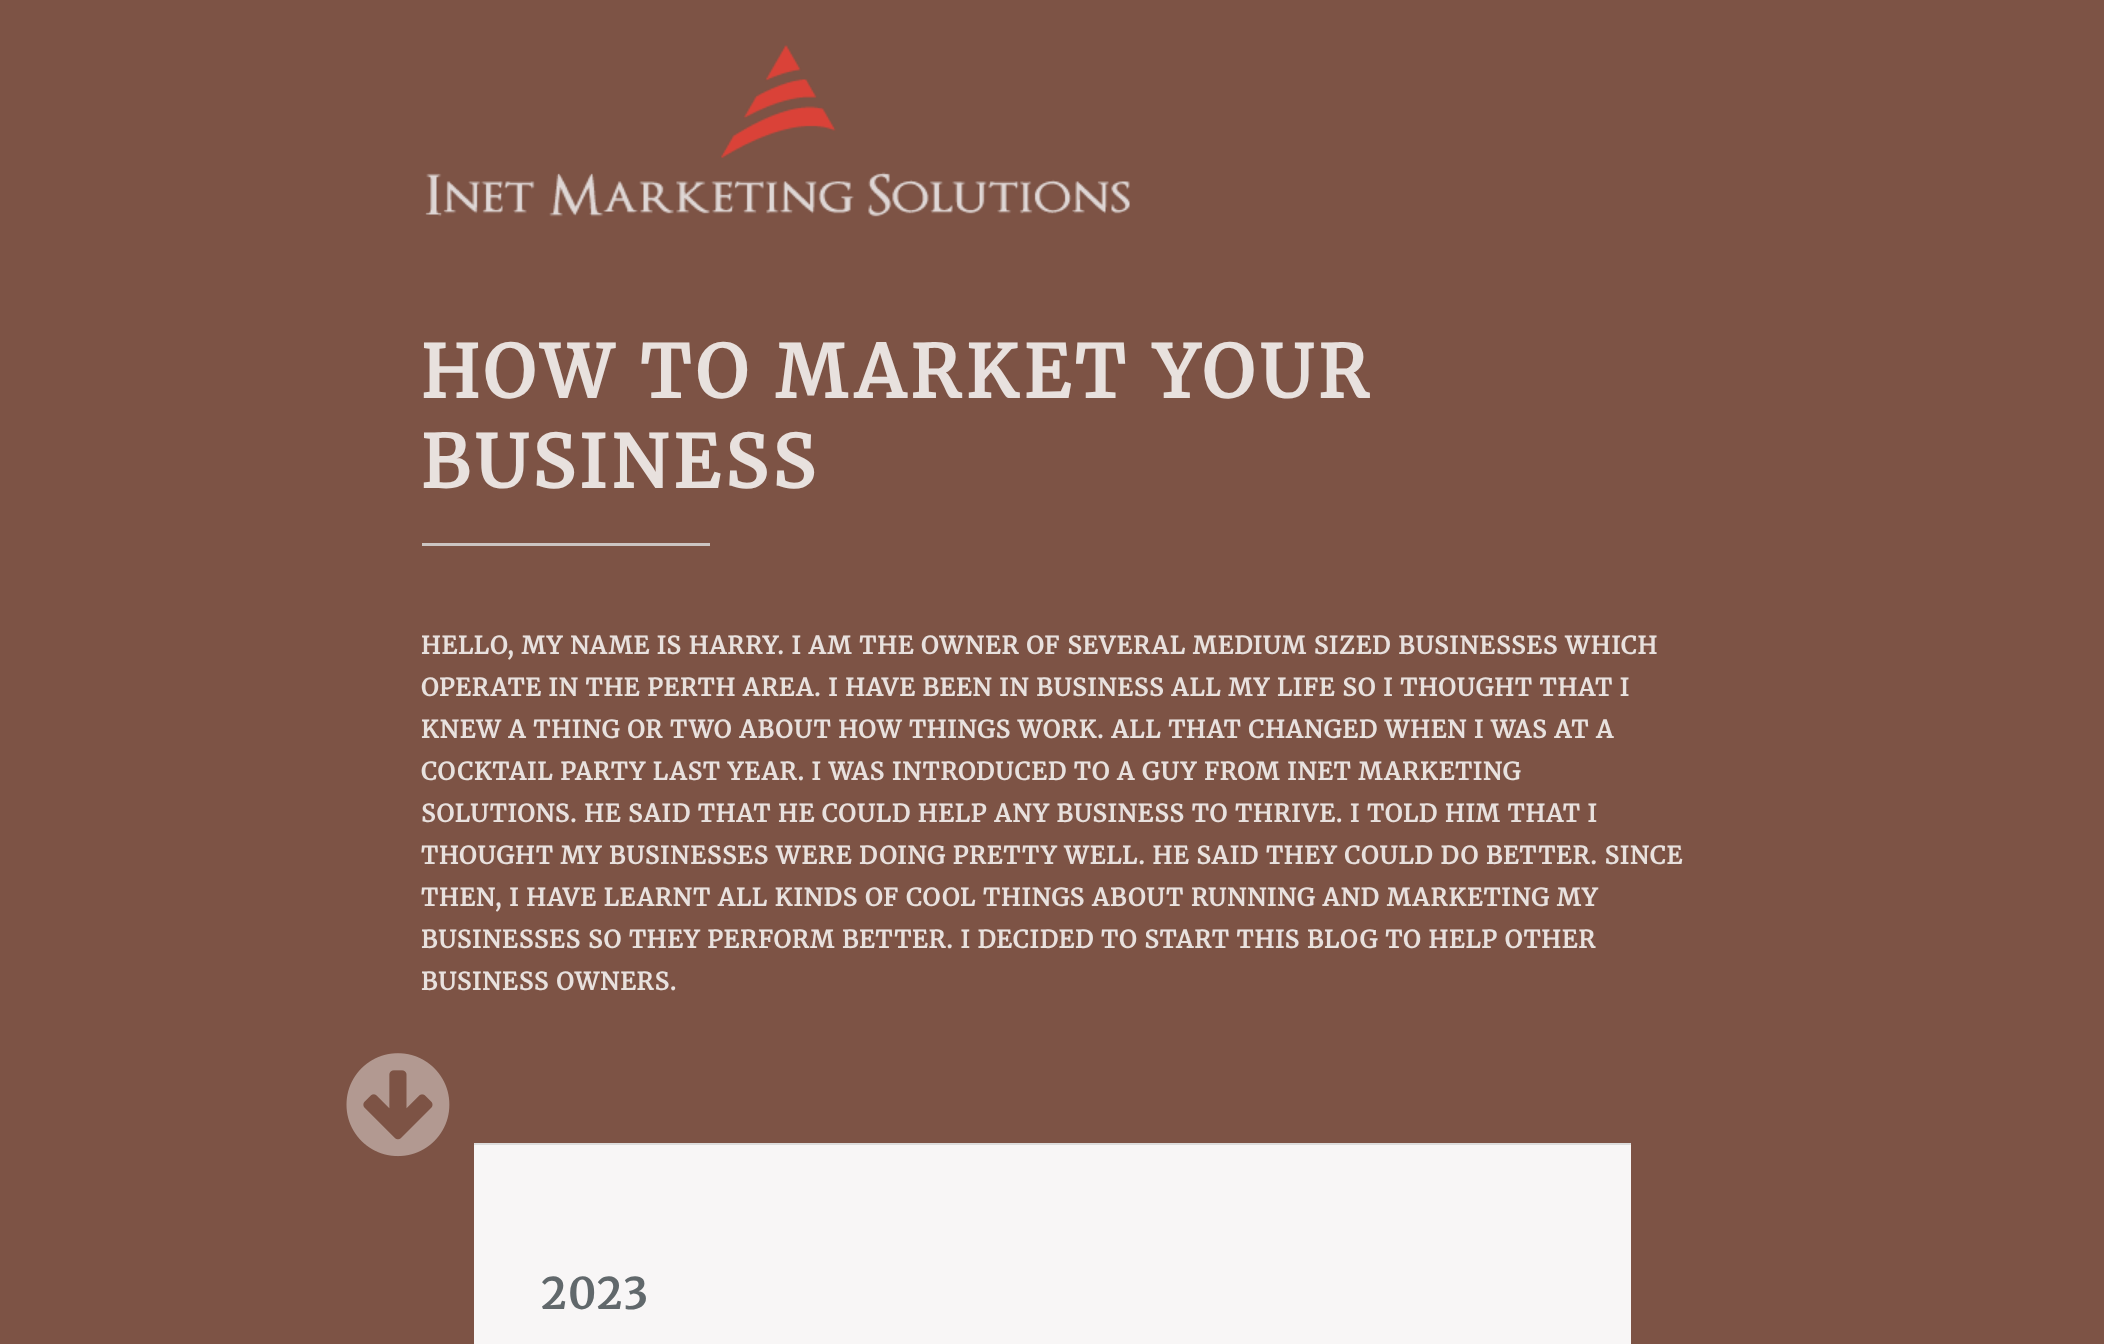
<svg xmlns="http://www.w3.org/2000/svg" width="2104" height="1344" viewBox="0 0 2104 1344">
  <style>
    .t1 { font: bold 72px Merriweather; letter-spacing: 5.4px; fill: #e8e1de; }
    .t2 { font: bold 24px Merriweather; letter-spacing: 1.2px; fill: #e8e1de; }
    .t3 { font: bold 42px Merriweather; letter-spacing: 3px; fill: #61686b; }
  </style>
  <rect width="100%" height="100%" fill="#7d5345"/>
  <image x="425" y="45" width="705" height="172" href="images/1.png"/>
  <text x="421" y="398" class="t1">HOW TO MARKET YOUR</text>
  <text x="421" y="488" class="t1">BUSINESS</text>
  <rect x="422" y="543" width="288" height="3" fill="#ccc5c2"/>
  <text x="421" y="654" class="t2">HELLO, MY NAME IS HARRY. I AM THE OWNER OF SEVERAL MEDIUM SIZED BUSINESSES WHICH</text>
  <text x="421" y="696" class="t2">OPERATE IN THE PERTH AREA. I HAVE BEEN IN BUSINESS ALL MY LIFE SO I THOUGHT THAT I</text>
  <text x="421" y="738" class="t2">KNEW A THING OR TWO ABOUT HOW THINGS WORK. ALL THAT CHANGED WHEN I WAS AT A</text>
  <text x="421" y="780" class="t2">COCKTAIL PARTY LAST YEAR. I WAS INTRODUCED TO A GUY FROM INET MARKETING</text>
  <text x="421" y="822" class="t2">SOLUTIONS. HE SAID THAT HE COULD HELP ANY BUSINESS TO THRIVE. I TOLD HIM THAT I</text>
  <text x="421" y="864" class="t2">THOUGHT MY BUSINESSES WERE DOING PRETTY WELL. HE SAID THEY COULD DO BETTER. SINCE</text>
  <text x="421" y="906" class="t2">THEN, I HAVE LEARNT ALL KINDS OF COOL THINGS ABOUT RUNNING AND MARKETING MY</text>
  <text x="421" y="948" class="t2">BUSINESSES SO THEY PERFORM BETTER. I DECIDED TO START THIS BLOG TO HELP OTHER</text>
  <text x="421" y="990" class="t2">BUSINESS OWNERS.</text>
  <image x="346" y="1053" width="104" height="104" href="images/2.png"/>
  <rect x="474" y="1145" width="1157" height="199" fill="#f8f6f6"/>
  <rect x="474" y="1143" width="1157" height="2" fill="#ddd"/>
  <text x="541" y="1309" class="t3">2023</text>
</svg>
